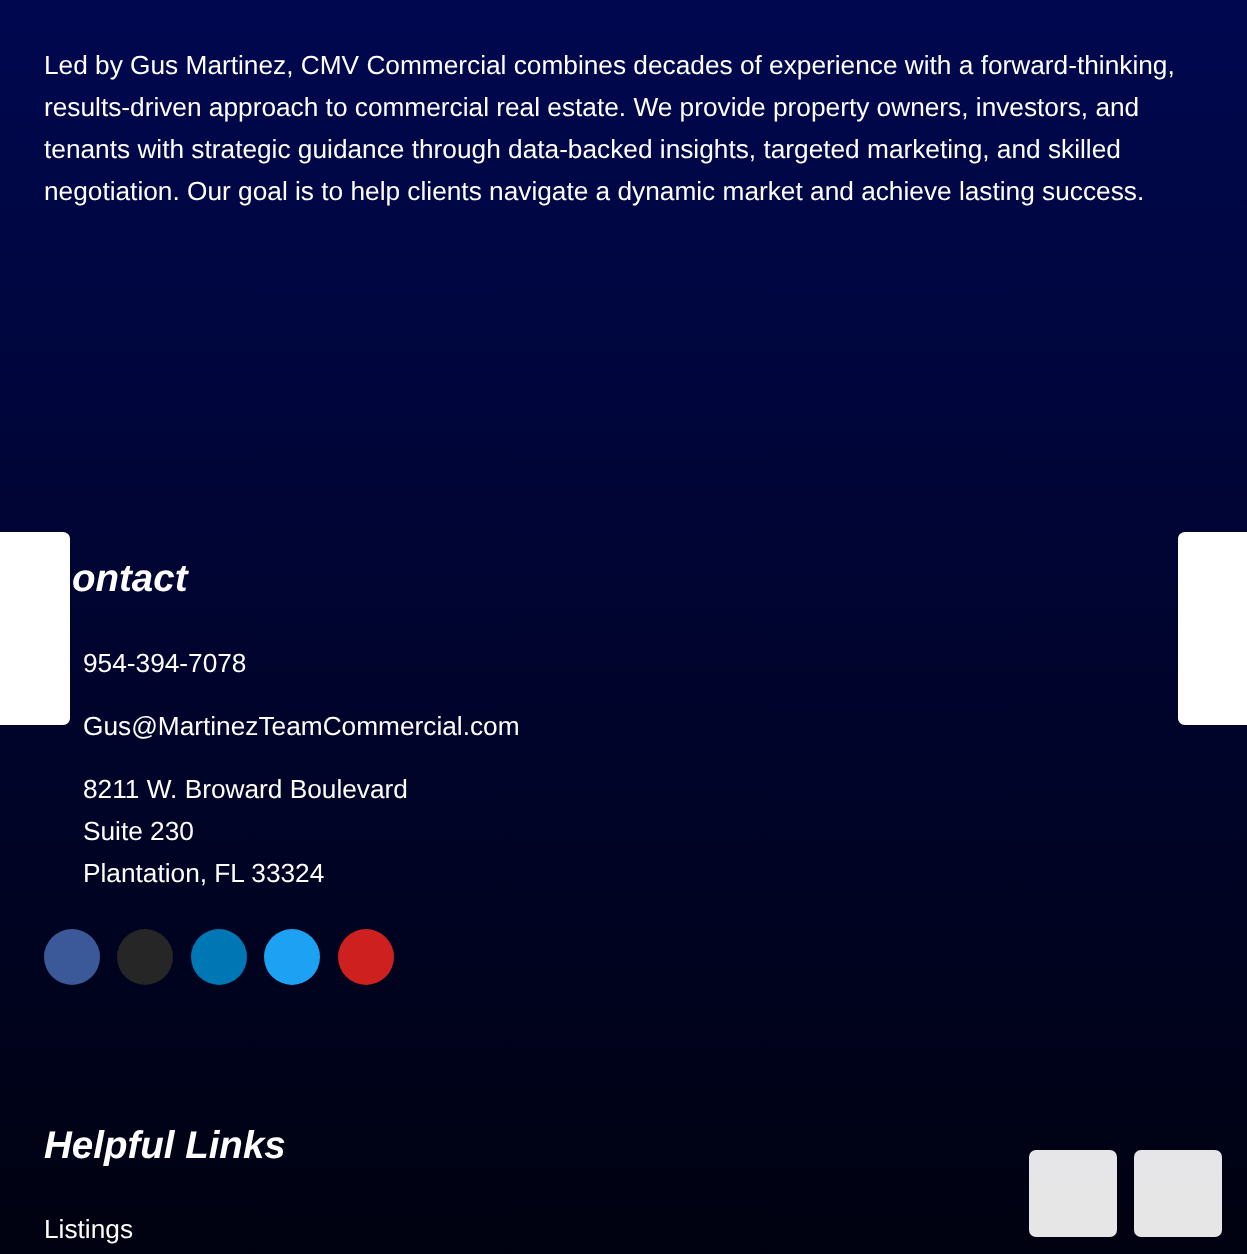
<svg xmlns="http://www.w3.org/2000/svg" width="1247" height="1254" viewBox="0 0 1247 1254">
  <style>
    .t1 { font: 26.25px Liberation Sans; fill: #fff; }
    .t2 { font: italic bold 38.5px Liberation Sans; fill: #fff; }
  </style>
  <defs>
    <linearGradient id="g1" gradientUnits="userSpaceOnUse" x1="624" y1="-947" x2="624" y2="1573"><stop offset="0" stop-color="#000c7f"/><stop offset="1" stop-color="#000"/></linearGradient>
  </defs>
  <rect width="100%" height="100%" fill="#fff"/>
  <rect x="0" y="0" width="1247" height="1254" fill="url(#g1)"/>
  <text x="44" y="74" class="t1">Led by Gus Martinez, CMV Commercial combines decades of experience with a forward-thinking,</text>
  <text x="44" y="116" class="t1">results-driven approach to commercial real estate. We provide property owners, investors, and</text>
  <text x="44" y="158" class="t1">tenants with strategic guidance through data-backed insights, targeted marketing, and skilled</text>
  <text x="44" y="200" class="t1">negotiation. Our goal is to help clients navigate a dynamic market and achieve lasting success.</text>
  <text x="72" y="591" class="t2">ontact</text>
  <text x="83" y="672" class="t1">954-394-7078</text>
  <text x="83" y="735" class="t1">Gus@MartinezTeamCommercial.com</text>
  <text x="83" y="798" class="t1">8211 W. Broward Boulevard</text>
  <text x="83" y="840" class="t1">Suite 230</text>
  <text x="83" y="882" class="t1">Plantation, FL 33324</text>
  <circle cx="72" cy="957" r="28" fill="#3b5998"/>
  <circle cx="145" cy="957" r="28" fill="#262626"/>
  <circle cx="219" cy="957" r="28" fill="#0077b5"/>
  <circle cx="292" cy="957" r="28" fill="#1da1f2"/>
  <circle cx="366" cy="957" r="28" fill="#cd201f"/>
  <text x="44" y="1158" class="t2">Helpful Links</text>
  <text x="44" y="1238" class="t1">Listings</text>
  <path d="M-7 532H63C67 532 70 535 70 539V718C70 722 67 725 63 725H-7Z" fill="#fff"/>
  <path d="M1185 532H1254V725H1185C1181 725 1178 722 1178 718V539C1178 535 1181 532 1185 532Z" fill="#fff"/>
  <rect x="1029" y="1150" width="88" height="87" rx="7" fill="#ffffffe6"/>
  <rect x="1134" y="1150" width="88" height="87" rx="7" fill="#ffffffe6"/>
</svg>
